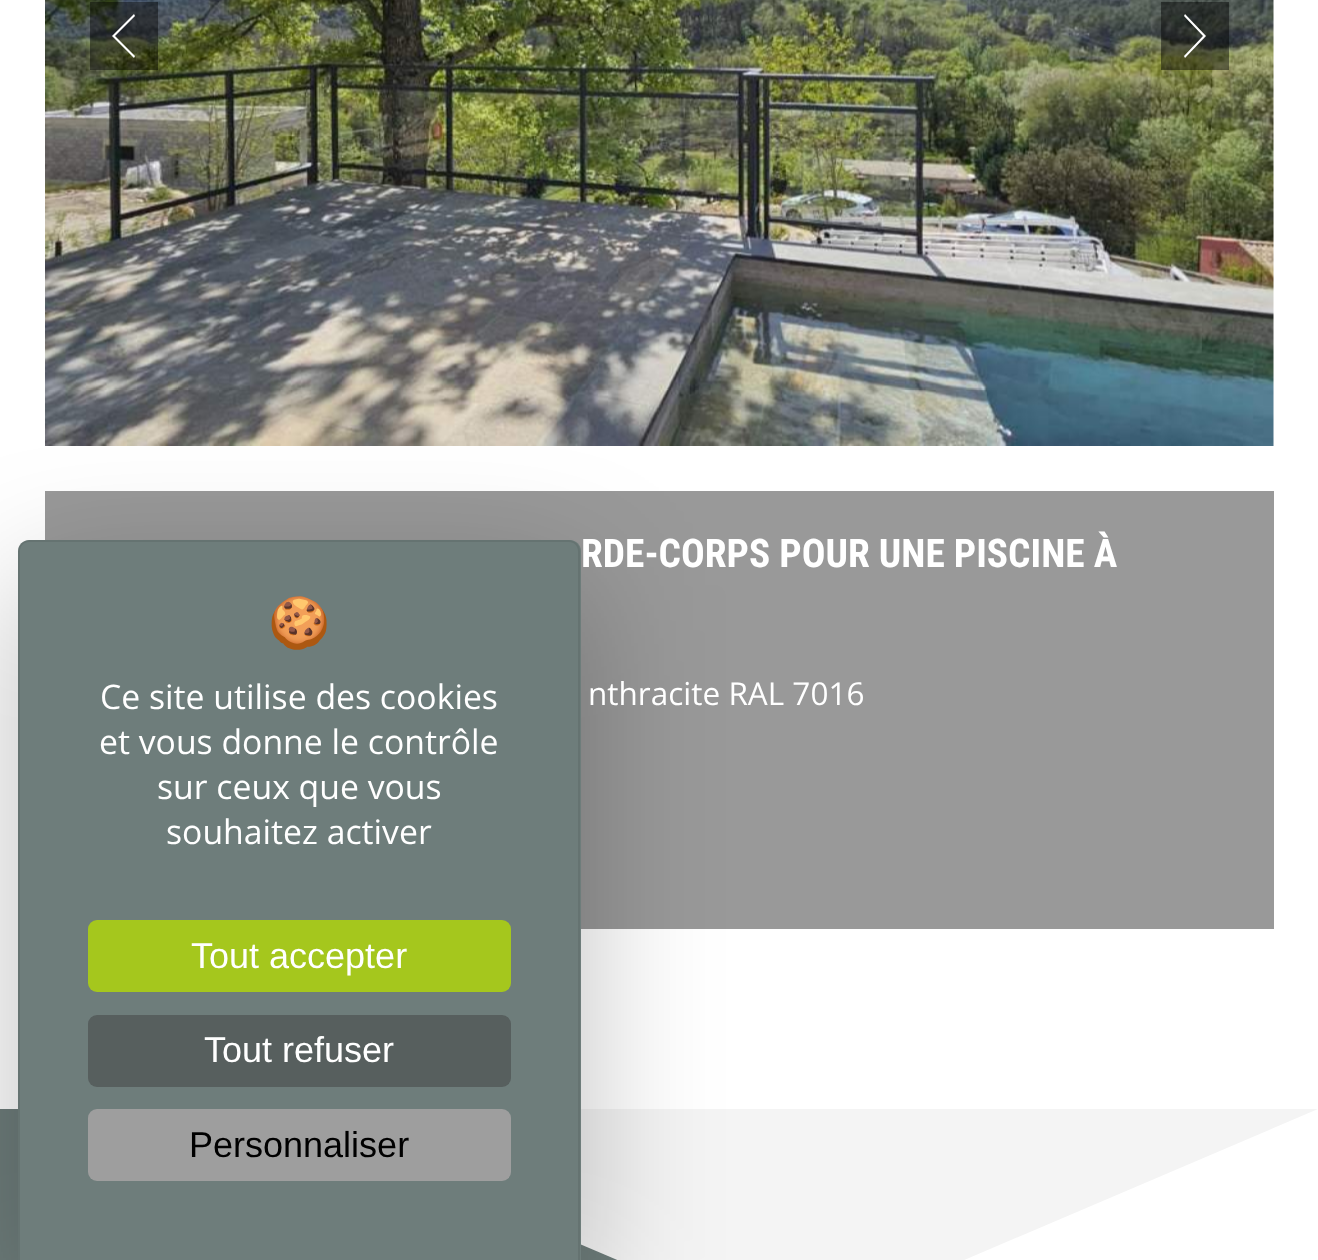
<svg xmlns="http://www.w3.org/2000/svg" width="1318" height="1260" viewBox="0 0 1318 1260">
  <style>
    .t1 { font: 50px Noto Color Emoji; fill: #fff; }
    .t2 { font: 33.75px Open Sans; fill: #fff; }
    .t3 { font: 36px Liberation Sans; fill: #fff; }
    .t4 { font: 36px Liberation Sans; fill: #000; }
    .t5 { font: bold 39.4px Roboto Condensed; fill: #fff; }
    .t6 { font: 31.5px Open Sans; fill: #fff; }
  </style>
  <rect width="100%" height="100%" fill="#6e7d7b"/>
  <rect x="0" y="0" width="1318" height="1109" fill="#fff"/>
  <image x="45" y="0" width="1229" height="446" href="images/1.png"/>
  <rect x="45" y="491" width="1229" height="438" fill="#999"/>
  <rect x="964" y="1109" width="354" height="151" fill="#fff"/>
  <path d="M791 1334L263 1109H1318Z" fill="#f4f4f4" fill-rule="evenodd"/>
  <rect x="18" y="585" width="563" height="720" rx="11" fill="#00000040" filter="blur(67.5px)"/>
  <path d="M29 540H570C576 540 581 545 581 551V1260H18V551C18 545 23 540 29 540Z" fill="#6e7d7b"/>
  <path d="M29 540H569C575 540 580 545 580 551V1260H18V551C18 545 23 540 29 540ZM29 542H569C574 542 578 546 578 551V1260H20V551C20 546 24 542 29 542Z" fill="#00000014" fill-rule="evenodd"/>
  <text x="268" y="640" class="t1">🍪</text>
  <text x="100" y="709" class="t2">Ce site utilise des cookies</text>
  <text x="99" y="754" class="t2">et vous donne le contrôle</text>
  <text x="157" y="799" class="t2">sur ceux que vous</text>
  <text x="166" y="844" class="t2">souhaitez activer</text>
  <rect x="88" y="920" width="423" height="72" rx="9" fill="#a5c71d"/>
  <text x="191" y="968" class="t3">Tout accepter</text>
  <rect x="88" y="1015" width="423" height="72" rx="9" fill="#575f5e"/>
  <text x="204" y="1062" class="t3">Tout refuser</text>
  <rect x="88" y="1109" width="423" height="72" rx="9" fill="#9e9e9e"/>
  <text x="189" y="1157" class="t4">Personnaliser</text>
  <rect x="90" y="2" width="68" height="68" fill="#00000070"/>
  <path d="M135 56L134 58L112 36L134 14L135 16L115 36Z" fill="#fff" fill-rule="evenodd"/>
  <rect x="1161" y="2" width="68" height="68" fill="#00000070"/>
  <path d="M1206 36L1185 58L1184 56L1203 36L1184 16L1185 14Z" fill="#fff" fill-rule="evenodd"/>
  <text x="581" y="567" class="t5">RDE-CORPS POUR UNE PISCINE À</text>
  <text x="588" y="705" class="t6">nthracite RAL 7016</text>
</svg>
